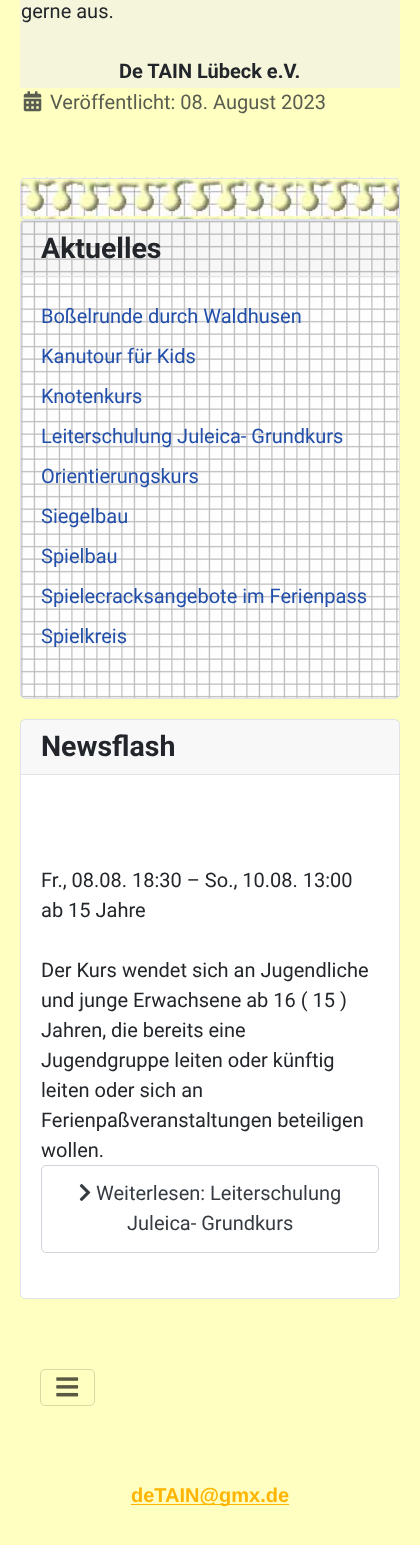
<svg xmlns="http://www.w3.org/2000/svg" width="420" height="1545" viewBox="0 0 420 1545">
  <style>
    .t1 { font: 20px Roboto; fill: #22262a; }
    .t2 { font: bold 20px Roboto; fill: #22262a; }
    .t3 { font: 20px Roboto; fill: #595c50; }
    .t4 { font: bold 28.5px Roboto; fill: #22262a; }
    .t5 { font: 20px Roboto; fill: #224faa; }
    .t6 { font: 20px Roboto; fill: #353b41; }
    .t7 { font: bold 20px Liberation Sans; fill: #ffb400; }
  </style>
  <rect width="100%" height="100%" fill="#feffc0"/>
  <rect x="20" y="0" width="380" height="88" fill="#f5f5dc"/>
  <text x="21" y="18" class="t1">gerne aus.</text>
  <text x="119" y="78" class="t2">De TAIN Lübeck e.V.</text>
  <image x="23" y="91" width="19" height="21" href="images/1.png"/>
  <text x="50" y="109" class="t3">Veröffentlicht: 08. August 2023</text>
  <image x="20" y="177" width="380" height="43" href="images/2.png"/>
  <rect x="20.5" y="178.5" width="379" height="41" rx="4.5" fill="none" stroke="#dfe3e7"/>
  <image x="20" y="220" width="380" height="479" href="images/3.png"/>
  <rect x="20.5" y="220.5" width="379" height="478" rx="4.5" fill="none" stroke="#dfe3e7"/>
  <rect x="21" y="221" width="378" height="57" fill="#22262a08"/>
  <rect x="21" y="276" width="378" height="1" fill="#dfe3e7"/>
  <text x="41" y="258" class="t4">Aktuelles</text>
  <text x="41" y="323" class="t5">Boßelrunde durch Waldhusen</text>
  <text x="41" y="363" class="t5">Kanutour für Kids</text>
  <text x="41" y="403" class="t5">Knotenkurs</text>
  <text x="41" y="443" class="t5">Leiterschulung Juleica- Grundkurs</text>
  <text x="41" y="483" class="t5">Orientierungskurs</text>
  <text x="41" y="523" class="t5">Siegelbau</text>
  <text x="41" y="563" class="t5">Spielbau</text>
  <text x="41" y="603" class="t5">Spielecracksangebote im Ferienpass</text>
  <text x="41" y="643" class="t5">Spielkreis</text>
  <rect x="20.5" y="719.5" width="379" height="579" rx="4.5" fill="#fff" stroke="#dfe3e7"/>
  <rect x="21" y="720" width="378" height="54" fill="#22262a08"/>
  <rect x="21" y="774" width="378" height="1" fill="#dfe3e7"/>
  <text x="41" y="756" class="t4">Newsflash</text>
  <text x="41" y="887" class="t1">Fr., 08.08. 18:30 – So., 10.08. 13:00</text>
  <text x="41" y="917" class="t1">ab 15 Jahre</text>
  <text x="41" y="977" class="t1">Der Kurs wendet sich an Jugendliche</text>
  <text x="41" y="1007" class="t1">und junge Erwachsene ab 16 ( 15 )</text>
  <text x="41" y="1037" class="t1">Jahren, die bereits eine</text>
  <text x="41" y="1067" class="t1">Jugendgruppe leiten oder künftig</text>
  <text x="41" y="1097" class="t1">leiten oder sich an</text>
  <text x="41" y="1127" class="t1">Ferienpaßveranstaltungen beteiligen</text>
  <text x="41" y="1157" class="t1">wollen.</text>
  <rect x="41.5" y="1165.5" width="337" height="87" rx="4.5" fill="none" stroke="#ced4da"/>
  <image x="79" y="1184" width="12" height="17" href="images/4.png"/>
  <text x="96" y="1200" class="t6">Weiterlesen: Leiterschulung</text>
  <text x="127" y="1230" class="t6">Juleica- Grundkurs</text>
  <rect x="40.5" y="1369.5" width="54" height="36" rx="4.5" fill="none" stroke="#d8d9a3"/>
  <image x="56" y="1377" width="23" height="20" href="images/5.png"/>
  <rect x="131" y="1504" width="158" height="1" fill="#ffb400"/>
  <text x="131" y="1502" class="t7">deTAIN@gmx.de</text>
</svg>
